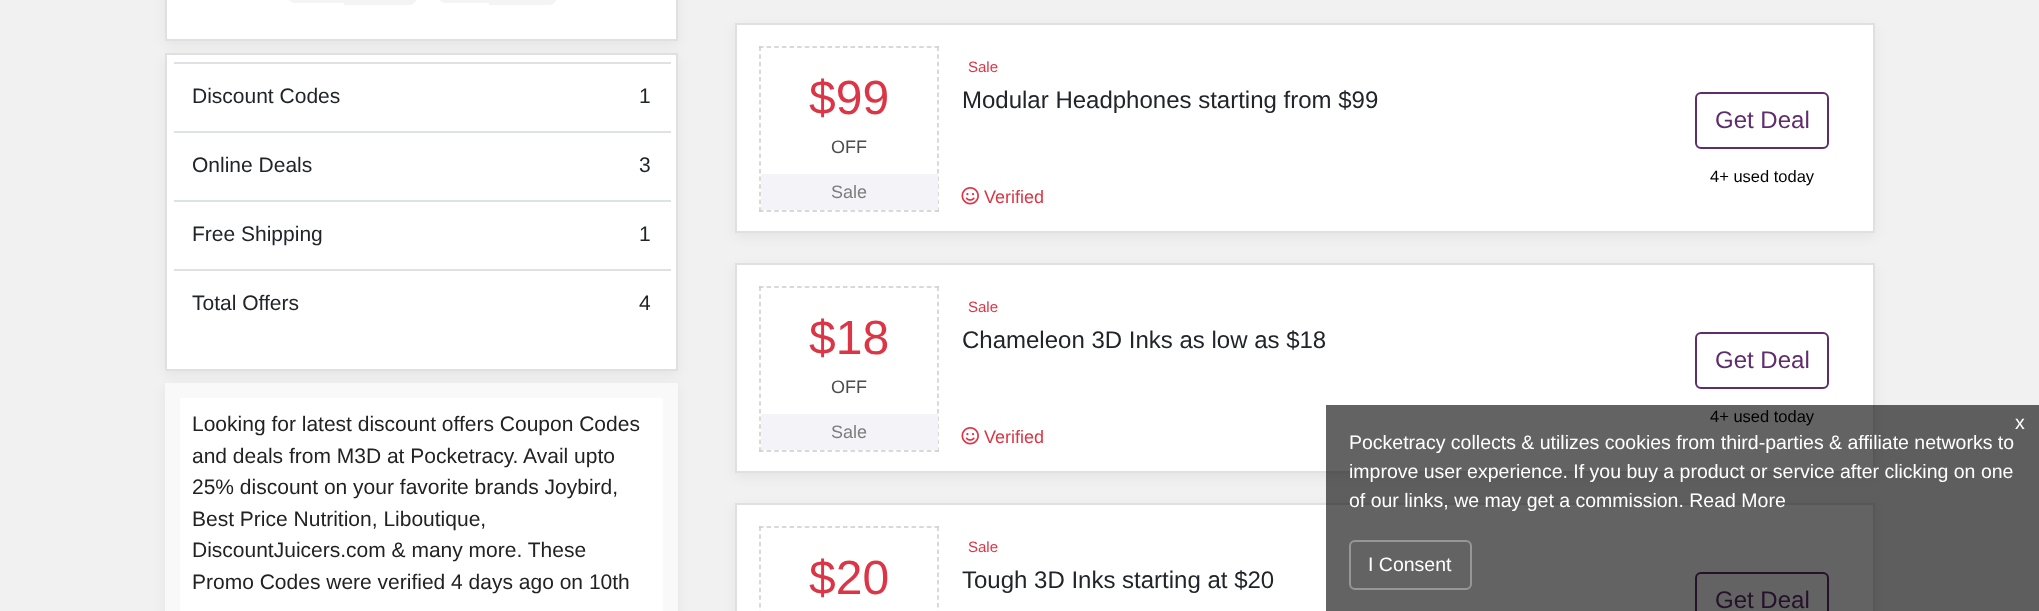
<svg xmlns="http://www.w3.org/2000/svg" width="2039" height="611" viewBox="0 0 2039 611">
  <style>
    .t1 { font: 21px Liberation Sans; fill: #212529; }
    .t2 { font: 21px Liberation Sans; fill: #222; }
    .t3 { font: 48px Liberation Sans; fill: #dc3545; }
    .t4 { font: 18px Liberation Sans; fill: #4d4d4d; }
    .t5 { font: 18px Liberation Sans; fill: #7e7e80; }
    .t6 { font: 15px Liberation Sans; fill: #dc3545; }
    .t7 { font: 24px Liberation Sans; fill: #212529; }
    .t8 { font: 18px Liberation Sans; fill: #dc3545; }
    .t9 { font: 24px Liberation Sans; fill: #602d6c; }
    .t10 { font: 16.5px Liberation Sans; fill: #000; }
    .t11 { font: 19.5px Liberation Sans; fill: #fff; }
  </style>
  <rect width="100%" height="100%" fill="#f1f1f1"/>
  <rect x="165" y="-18" width="513" height="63" fill="#0000000d" filter="blur(6px)"/>
  <rect x="166" y="-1" width="511" height="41" fill="#fff" stroke="#e0e0e0" stroke-width="2"/>
  <path d="M295-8H344V3H295C290.5 3 287-.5 287-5V0C287-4.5 290.5-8 295-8Z" fill="#f4f4f4"/>
  <path d="M344-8H409C413.5-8 417-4.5 417 0V-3C417 1.5 413.5 5 409 5H344Z" fill="#f4f4f4"/>
  <path d="M446-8H489V3H446C441.5 3 438-.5 438-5V0C438-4.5 441.5-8 446-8Z" fill="#f4f4f4"/>
  <path d="M489-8H549C553.5-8 557-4.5 557 0V-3C557 1.5 553.5 5 549 5H489Z" fill="#f4f4f4"/>
  <rect x="165" y="57" width="513" height="318" fill="#0000000d" filter="blur(6px)"/>
  <rect x="166" y="54" width="511" height="316" fill="#fff" stroke="#e0e0e0" stroke-width="2"/>
  <text x="192" y="103" class="t1">Discount Codes</text>
  <rect x="174" y="62" width="497" height="2" fill="#dee2e6"/>
  <text x="639" y="103" class="t1">1</text>
  <text x="192" y="172" class="t1">Online Deals</text>
  <rect x="174" y="131" width="497" height="2" fill="#dee2e6"/>
  <text x="639" y="172" class="t1">3</text>
  <text x="192" y="241" class="t1">Free Shipping</text>
  <rect x="174" y="200" width="497" height="2" fill="#dee2e6"/>
  <text x="639" y="241" class="t1">1</text>
  <text x="192" y="310" class="t1">Total Offers</text>
  <rect x="174" y="269" width="497" height="2" fill="#dee2e6"/>
  <text x="639" y="310" class="t1">4</text>
  <rect x="165" y="387" width="513" height="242" fill="#0000000d" filter="blur(6px)"/>
  <rect x="172.5" y="390.5" width="498" height="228" fill="#fff" stroke="#f9f9f9" stroke-width="15"/>
  <text x="192" y="431" class="t2">Looking for latest discount offers Coupon Codes</text>
  <text x="192" y="463" class="t2">and deals from M3D at Pocketracy. Avail upto</text>
  <text x="192" y="494" class="t2">25% discount on your favorite brands Joybird,</text>
  <text x="192" y="526" class="t2">Best Price Nutrition, Liboutique,</text>
  <text x="192" y="557" class="t2">DiscountJuicers.com &amp; many more. These</text>
  <text x="192" y="589" class="t2">Promo Codes were verified 4 days ago on 10th</text>
  <rect x="735" y="27" width="1140" height="210" fill="#0000000d" filter="blur(6px)"/>
  <rect x="736" y="24" width="1138" height="208" fill="#fff" stroke="#e0e0e0" stroke-width="2"/>
  <path d="M759 47H939" fill="none" stroke="#cdcdcd" stroke-width="1.5" stroke-dasharray="4.5 3.13"/>
  <path d="M938 46.5V211.5" fill="none" stroke="#cdcdcd" stroke-width="1.5" stroke-dasharray="4.5 3.15"/>
  <path d="M759 211H939" fill="none" stroke="#cdcdcd" stroke-width="1.5" stroke-dasharray="4.5 3.13"/>
  <path d="M760 46.5V211.5" fill="none" stroke="#cdcdcd" stroke-width="1.5" stroke-dasharray="4.5 3.15"/>
  <text x="809" y="114" class="t3">$99</text>
  <text x="831" y="153" class="t4">OFF</text>
  <rect x="761" y="174" width="177" height="36" fill="#f4f4f8"/>
  <text x="831" y="198" class="t5">Sale</text>
  <text x="968" y="72" class="t6">Sale</text>
  <text x="962" y="108" class="t7">Modular Headphones starting from $99</text>
  <image x="961" y="187" width="18" height="18" href="images/1.png"/>
  <text x="984" y="203" class="t8">Verified</text>
  <rect x="1696" y="93" width="132" height="55" rx="5" fill="none" stroke="#602d6c" stroke-width="2"/>
  <text x="1715" y="128" class="t9">Get Deal</text>
  <text x="1710" y="182" class="t10">4+ used today</text>
  <rect x="735" y="267" width="1140" height="210" fill="#0000000d" filter="blur(6px)"/>
  <rect x="736" y="264" width="1138" height="208" fill="#fff" stroke="#e0e0e0" stroke-width="2"/>
  <path d="M759 287H939" fill="none" stroke="#cdcdcd" stroke-width="1.5" stroke-dasharray="4.5 3.13"/>
  <path d="M938 286.5V451.5" fill="none" stroke="#cdcdcd" stroke-width="1.5" stroke-dasharray="4.5 3.15"/>
  <path d="M759 451H939" fill="none" stroke="#cdcdcd" stroke-width="1.5" stroke-dasharray="4.5 3.13"/>
  <path d="M760 286.5V451.5" fill="none" stroke="#cdcdcd" stroke-width="1.5" stroke-dasharray="4.5 3.15"/>
  <text x="809" y="354" class="t3">$18</text>
  <text x="831" y="393" class="t4">OFF</text>
  <rect x="761" y="414" width="177" height="36" fill="#f4f4f8"/>
  <text x="831" y="438" class="t5">Sale</text>
  <text x="968" y="312" class="t6">Sale</text>
  <text x="962" y="348" class="t7">Chameleon 3D Inks as low as $18</text>
  <image x="961" y="427" width="18" height="18" href="images/1.png"/>
  <text x="984" y="443" class="t8">Verified</text>
  <rect x="1696" y="333" width="132" height="55" rx="5" fill="none" stroke="#602d6c" stroke-width="2"/>
  <text x="1715" y="368" class="t9">Get Deal</text>
  <text x="1710" y="422" class="t10">4+ used today</text>
  <rect x="735" y="507" width="1140" height="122" fill="#0000000d" filter="blur(6px)"/>
  <rect x="736" y="504" width="1138" height="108" fill="#fff" stroke="#e0e0e0" stroke-width="2"/>
  <path d="M759 527H939" fill="none" stroke="#cdcdcd" stroke-width="1.5" stroke-dasharray="4.5 3.13"/>
  <path d="M938 526.5V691.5" fill="none" stroke="#cdcdcd" stroke-width="1.5" stroke-dasharray="4.5 3.15"/>
  <path d="M760 526.5V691.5" fill="none" stroke="#cdcdcd" stroke-width="1.5" stroke-dasharray="4.5 3.15"/>
  <text x="809" y="594" class="t3">$20</text>
  <text x="968" y="552" class="t6">Sale</text>
  <text x="962" y="588" class="t7">Tough 3D Inks starting at $20</text>
  <rect x="1696" y="573" width="132" height="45" rx="5" fill="none" stroke="#602d6c" stroke-width="2"/>
  <text x="1715" y="608" class="t9">Get Deal</text>
  <rect x="1326" y="405" width="713" height="206" fill="#0000009c"/>
  <text x="2015" y="429" class="t11">x</text>
  <text x="1349" y="449" class="t11">Pocketracy collects &amp; utilizes cookies from third-parties &amp; affiliate networks to</text>
  <text x="1349" y="478" class="t11">improve user experience. If you buy a product or service after clicking on one</text>
  <text x="1349" y="507" class="t11">of our links, we may get a commission. Read More</text>
  <rect x="1350" y="541" width="121" height="48" rx="5" fill="none" stroke="#979797" stroke-width="2"/>
  <text x="1368" y="571" class="t11">I Consent</text>
</svg>
